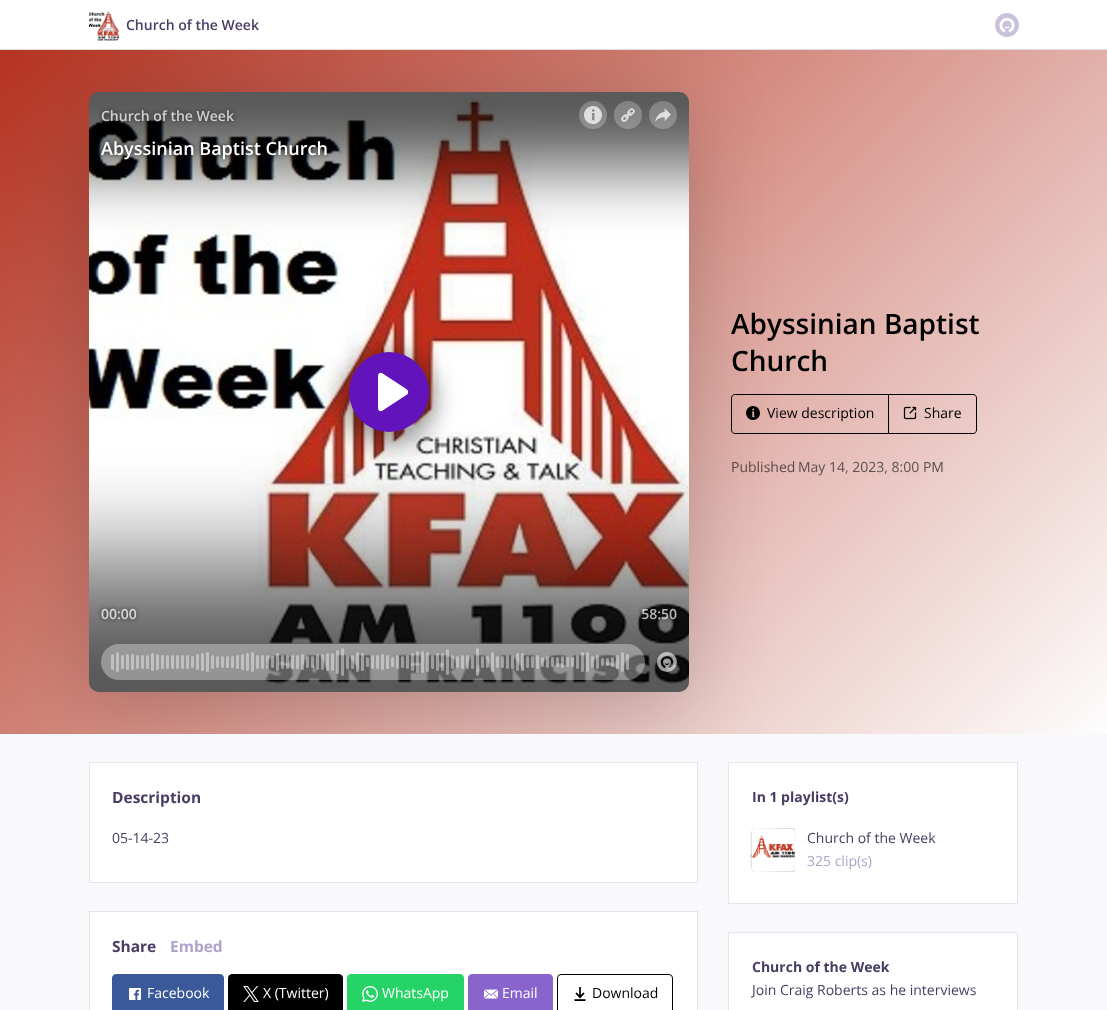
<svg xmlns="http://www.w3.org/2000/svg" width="1107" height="1010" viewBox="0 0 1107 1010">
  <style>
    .t1 { font: 600 14px Open Sans; fill: #483c63; }
    .t2 { font: 600 28px Open Sans; fill: #000; }
    .t3 { font: 14px Open Sans; fill: #000; }
    .t4 { font: 14px Open Sans; fill: #5a4946; }
    .t5 { font: 14px Open Sans; fill: #5d4f4d; }
    .t6 { font: bold 15.5px Open Sans; fill: #483c63; }
    .t7 { font: 14px Open Sans; fill: #483c63; }
    .t8 { font: bold 15.5px Open Sans; fill: #aea3c8; }
    .t9 { font: 14px Open Sans; fill: #fff; }
    .t10 { font: bold 14px Open Sans; fill: #483c63; }
    .t11 { font: 14px Open Sans; fill: #aea3c8; }
  </style>
  <defs>
    <linearGradient id="g1" gradientUnits="userSpaceOnUse" x1="106" y1="-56" x2="1001" y2="840"><stop offset="0" stop-color="#b53321"/><stop offset="1" stop-color="#fdfdfd"/></linearGradient>
    <clipPath id="clip1"><rect x="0" y="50" width="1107" height="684"/></clipPath>
  </defs>
  <rect width="100%" height="100%" fill="#f9f8fb"/>
  <rect x="0" y="0" width="1107" height="49" fill="#fff"/>
  <rect x="0" y="49" width="1107" height="1" fill="#ddd"/>
  <image x="89" y="11" width="30" height="30" href="images/1.png"/>
  <text x="126" y="30" class="t1">Church of the Week</text>
  <image x="995" y="13" width="24" height="24" href="images/2.png"/>
  <rect x="0" y="50" width="1107" height="684" fill="url(#g1)"/>
  <path d="M735 394.5H888.5V433.5H735C733 433.5 731.5 432 731.5 430V398C731.5 396 733 394.5 735 394.5Z" fill="none" stroke="#000"/>
  <rect x="89.5" y="762.5" width="608" height="120" fill="#fff" stroke="#e6e2ee"/>
  <rect x="728.5" y="762.5" width="289" height="141" fill="#fff" stroke="#e6e2ee"/>
  <g clip-path="url(#clip1)">
    <rect x="89" y="106" width="600" height="600" rx="10" fill="#00000033" filter="blur(42px)"/>
  </g>
  <rect x="89" y="92" width="600" height="600" rx="10" fill="#00000033"/>
  <image x="89" y="92" width="600" height="600" href="images/3.png"/>
  <text x="731" y="334" class="t2">Abyssinian Baptist</text>
  <text x="731" y="371" class="t2">Church</text>
  <image x="746" y="406" width="14" height="14" href="images/4.png"/>
  <text x="767" y="418" class="t3">View description</text>
  <path d="M889 394H973C975 394 977 396 977 398V430C977 432 975 434 973 434H889ZM889 395H973C975 395 976 396 976 398V430C976 432 975 433 973 433H889Z" fill="#000" fill-rule="evenodd"/>
  <image x="903" y="406" width="14" height="14" href="images/5.png"/>
  <text x="924" y="418" class="t3">Share</text>
  <text x="731" y="472" class="t4">Published</text>
  <text x="798" y="472" class="t5">May 14, 2023, 8:00 PM</text>
  <text x="112" y="803" class="t6">Description</text>
  <text x="112" y="843" class="t7">05-14-23</text>
  <rect x="89.5" y="911.5" width="608" height="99" fill="#fff" stroke="#e6e2ee"/>
  <text x="112" y="952" class="t6">Share</text>
  <text x="170" y="952" class="t8">Embed</text>
  <rect x="112.5" y="974.5" width="111" height="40" rx="3.5" fill="#3b5998" stroke="#3b5998"/>
  <image x="129" y="988" width="12" height="12" href="images/6.png"/>
  <text x="147" y="998" class="t9">Facebook</text>
  <rect x="228.5" y="974.5" width="114" height="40" rx="3.5" fill="#000" stroke="#000"/>
  <image x="243" y="986" width="16" height="16" href="images/7.png"/>
  <text x="263" y="998" class="t9">X (Twitter)</text>
  <rect x="347.5" y="974.5" width="116" height="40" rx="3.5" fill="#25d366" stroke="#25d366"/>
  <image x="362" y="986" width="16" height="16" href="images/8.png"/>
  <text x="382" y="998" class="t9">WhatsApp</text>
  <rect x="468.5" y="974.5" width="84" height="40" rx="3.5" fill="#8964cc" stroke="#8964cc"/>
  <image x="484" y="989" width="14" height="10" href="images/9.png"/>
  <text x="502" y="998" class="t9">Email</text>
  <rect x="557.5" y="974.5" width="115" height="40" rx="3.5" fill="none" stroke="#000"/>
  <image x="574" y="987" width="12" height="14" href="images/10.png"/>
  <text x="592" y="998" class="t3">Download</text>
  <text x="752" y="802" class="t10">In 1 playlist(s)</text>
  <rect x="750" y="832" width="34" height="36" rx="2.5" fill="#efecf4"/>
  <image x="750" y="839" width="2" height="18" href="images/13.png"/>
  <rect x="751" y="830" width="39" height="40" rx="2.5" fill="#afa1ca80"/>
  <image x="750" y="830" width="3" height="40" href="images/12.png"/>
  <rect x="752" y="828" width="43" height="44" rx="3" fill="#afa1ca"/>
  <image x="752" y="828" width="43" height="44" href="images/11.png"/>
  <text x="807" y="843" class="t7">Church of the Week</text>
  <text x="807" y="866" class="t11">325 clip(s)</text>
  <rect x="728.5" y="932.5" width="289" height="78" fill="#fff" stroke="#e6e2ee"/>
  <text x="752" y="972" class="t10">Church of the Week</text>
  <text x="752" y="995" class="t7">Join Craig Roberts as he interviews</text>
</svg>
